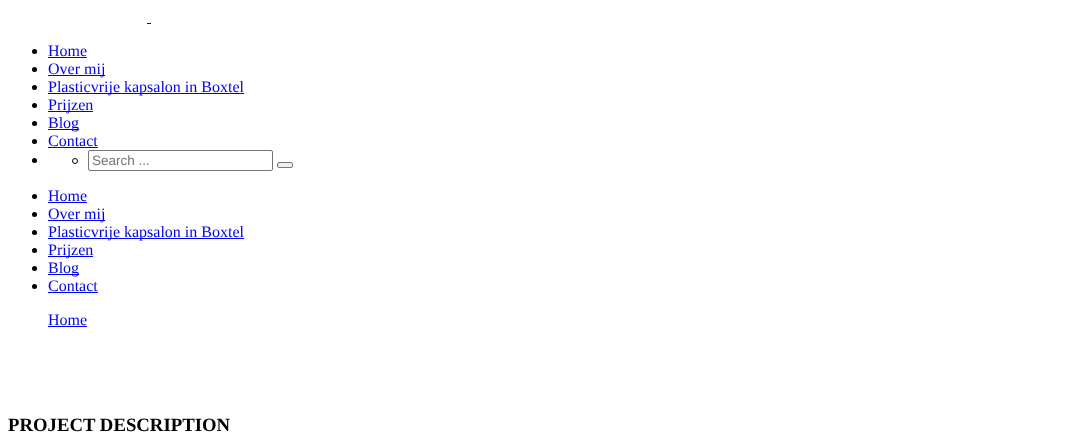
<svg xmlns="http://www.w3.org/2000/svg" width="1072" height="445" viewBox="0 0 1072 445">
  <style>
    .t1 { font: 16px Liberation Serif; fill: #00e; }
    .t2 { font: 13.5px Liberation Sans; fill: #757575; }
    .t3 { font: bold 18.75px Liberation Serif; fill: #000; }
  </style>
  <rect width="100%" height="100%" fill="#fff"/>
  <rect x="147" y="23" width="4" height="1" fill="#00e"/>
  <circle cx="34.5" cy="51.5" r="2.5" fill="#000"/>
  <text x="48" y="56" class="t1">Home</text>
  <rect x="48" y="57" width="39" height="1" fill="#00e"/>
  <circle cx="34.5" cy="69.5" r="2.5" fill="#000"/>
  <rect x="48" y="75" width="57" height="1" fill="#00e"/>
  <text x="48" y="74" class="t1">Over mij</text>
  <circle cx="34.5" cy="87.5" r="2.5" fill="#000"/>
  <rect x="48" y="93" width="196" height="1" fill="#00e"/>
  <text x="48" y="92" class="t1">Plasticvrije kapsalon in Boxtel</text>
  <circle cx="34.5" cy="105.5" r="2.5" fill="#000"/>
  <rect x="48" y="111" width="45" height="1" fill="#00e"/>
  <text x="48" y="110" class="t1">Prijzen</text>
  <circle cx="34.5" cy="123.5" r="2.5" fill="#000"/>
  <rect x="48" y="129" width="31" height="1" fill="#00e"/>
  <text x="48" y="128" class="t1">Blog</text>
  <circle cx="34.5" cy="141.5" r="2.5" fill="#000"/>
  <text x="48" y="146" class="t1">Contact</text>
  <rect x="48" y="147" width="50" height="1" fill="#00e"/>
  <circle cx="34.5" cy="160.5" r="2.5" fill="#000"/>
  <circle cx="75" cy="161" r="2.5" fill="none" stroke="#000"/>
  <rect x="88.5" y="150.5" width="184" height="20" rx="1.5" fill="none" stroke="#767676"/>
  <text x="92" y="165" class="t2">Search ...</text>
  <rect x="277.5" y="162.5" width="15" height="5" rx="1.5" fill="#efefef" stroke="#767676"/>
  <circle cx="34.5" cy="196.5" r="2.5" fill="#000"/>
  <text x="48" y="201" class="t1">Home</text>
  <rect x="48" y="202" width="39" height="1" fill="#00e"/>
  <circle cx="34.5" cy="214.5" r="2.5" fill="#000"/>
  <rect x="48" y="220" width="57" height="1" fill="#00e"/>
  <text x="48" y="219" class="t1">Over mij</text>
  <circle cx="34.5" cy="232.5" r="2.5" fill="#000"/>
  <rect x="48" y="238" width="196" height="1" fill="#00e"/>
  <text x="48" y="237" class="t1">Plasticvrije kapsalon in Boxtel</text>
  <circle cx="34.5" cy="250.5" r="2.5" fill="#000"/>
  <rect x="48" y="256" width="45" height="1" fill="#00e"/>
  <text x="48" y="255" class="t1">Prijzen</text>
  <circle cx="34.5" cy="268.5" r="2.5" fill="#000"/>
  <rect x="48" y="274" width="31" height="1" fill="#00e"/>
  <text x="48" y="273" class="t1">Blog</text>
  <circle cx="34.5" cy="286.5" r="2.5" fill="#000"/>
  <text x="48" y="291" class="t1">Contact</text>
  <rect x="48" y="292" width="50" height="1" fill="#00e"/>
  <text x="48" y="325" class="t1">Home</text>
  <rect x="48" y="326" width="39" height="1" fill="#00e"/>
  <text x="8" y="431" class="t3">PROJECT DESCRIPTION</text>
</svg>
